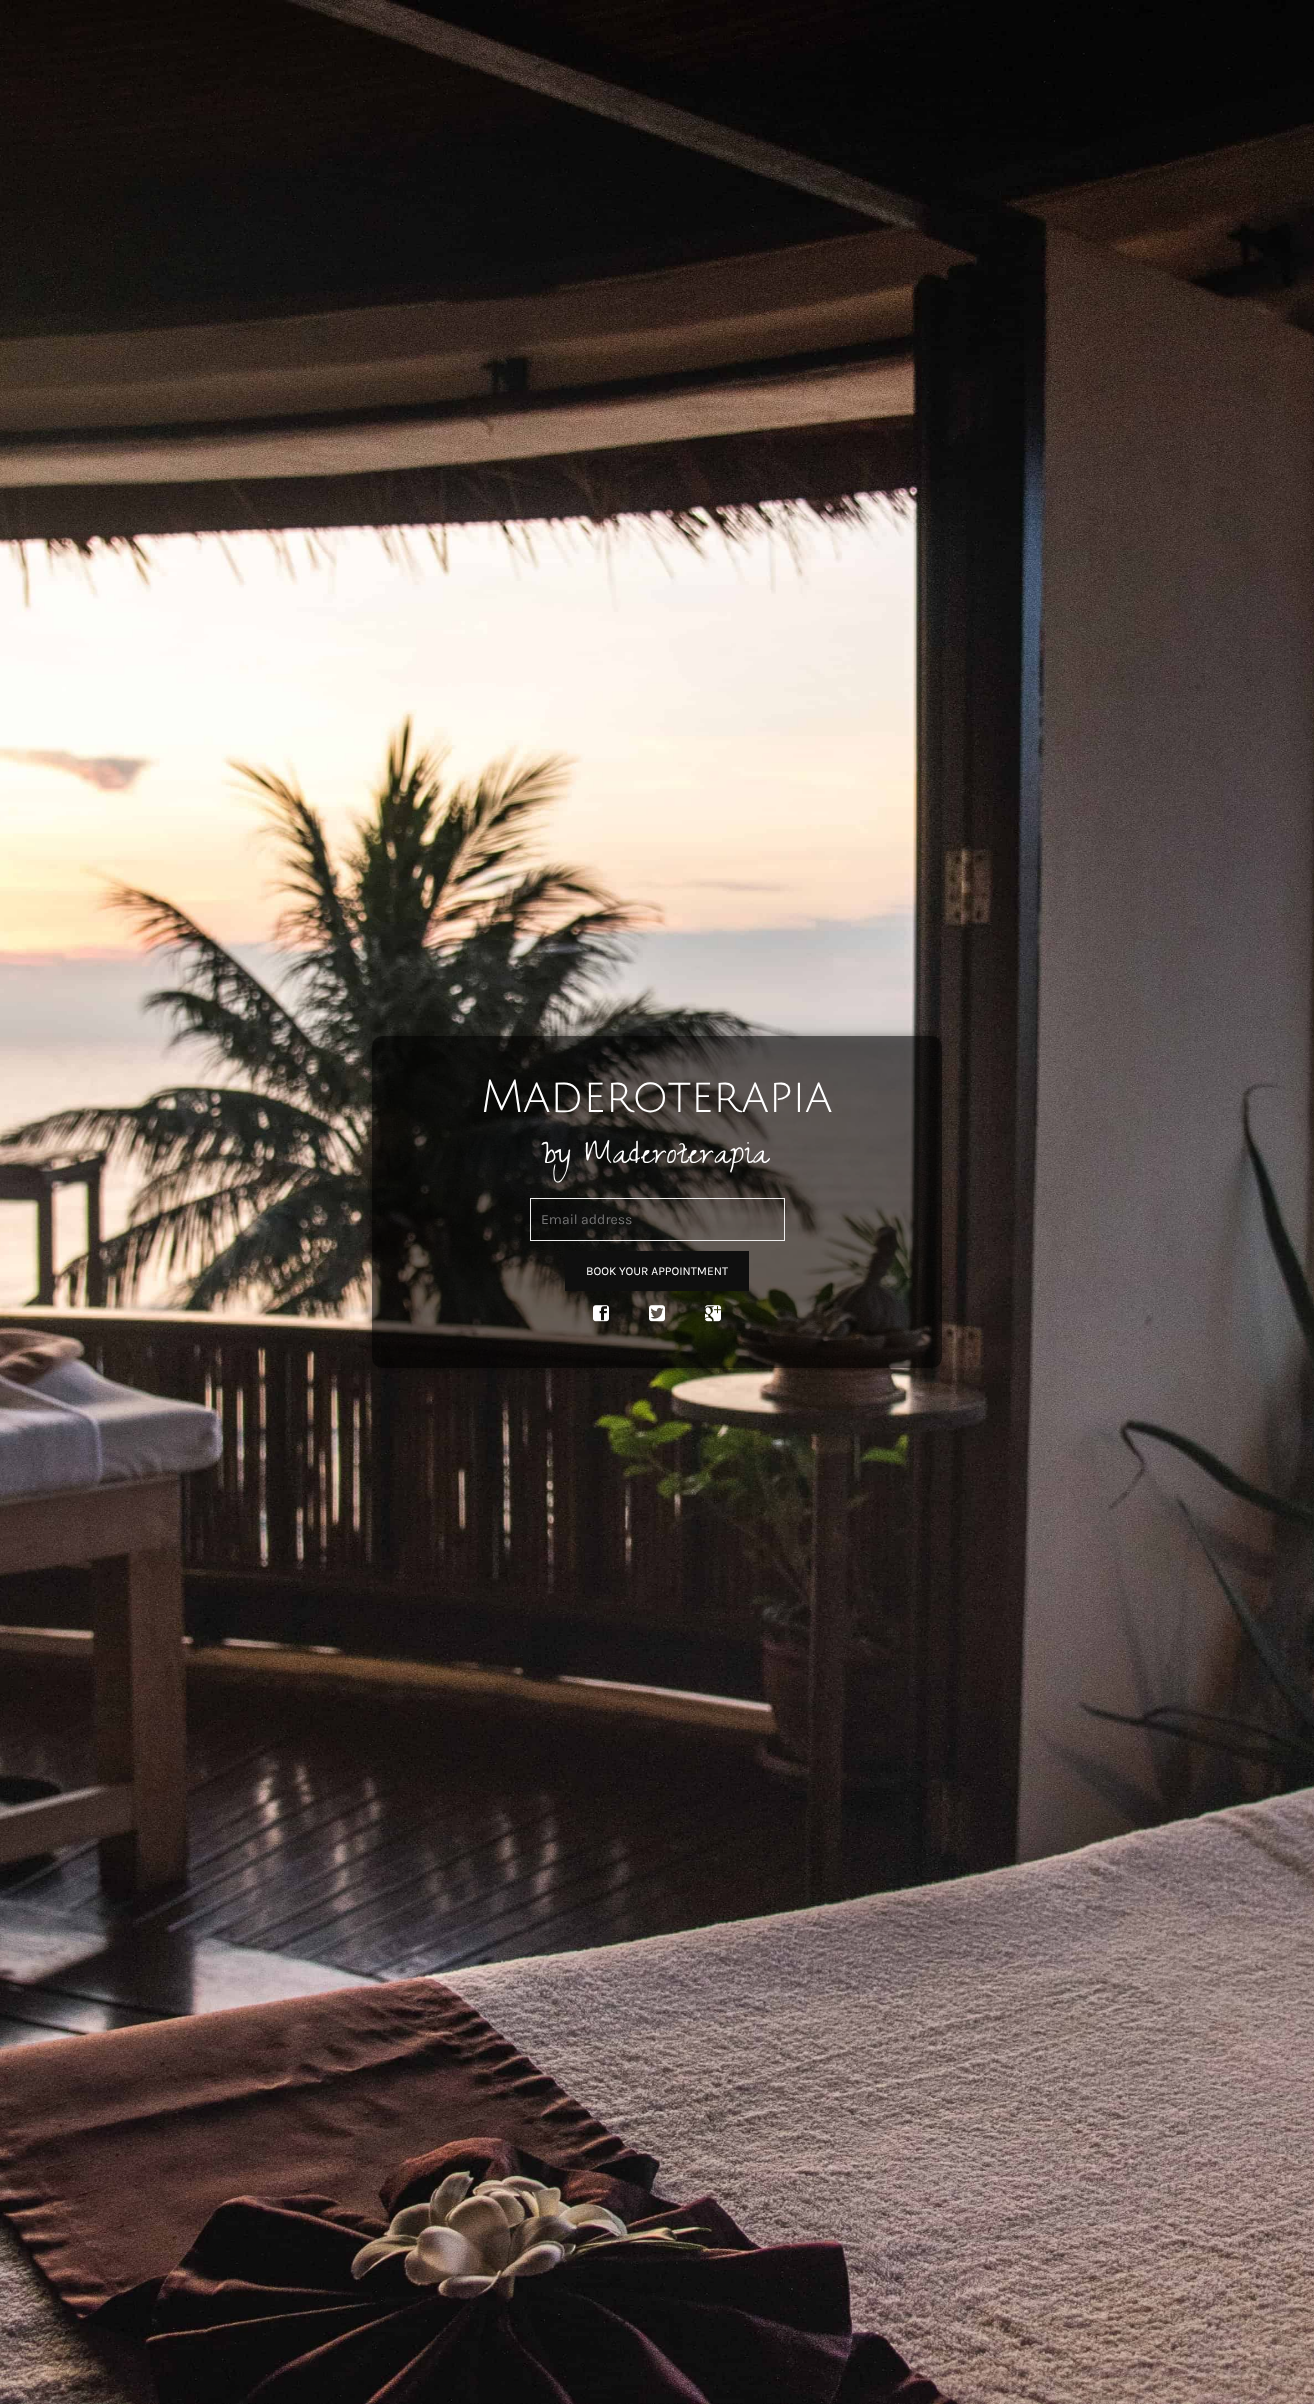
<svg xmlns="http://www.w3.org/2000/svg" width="1314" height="2404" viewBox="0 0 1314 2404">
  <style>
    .t1 { font: 45px Julius Sans One; fill: #fff; }
    .t2 { font: 37px Zeyada; fill: #fff; }
    .t3 { font: 14px Karla; fill: #757575; }
    .t4 { font: 12px Karla; fill: #fff; }
  </style>
  <defs>
    <clipPath id="clip1"><path d="M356 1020H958V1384H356ZM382 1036H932C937.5 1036 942 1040.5 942 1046V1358C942 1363.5 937.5 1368 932 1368H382C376.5 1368 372 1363.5 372 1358V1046C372 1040.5 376.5 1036 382 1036Z" clip-rule="evenodd"/></clipPath>
  </defs>
  <rect width="100%" height="100%" fill="#fff"/>
  <image x="0" y="0" width="1314" height="2404" href="images/1.png"/>
  <g clip-path="url(#clip1)">
    <rect x="372" y="1036" width="570" height="332" rx="10" fill="#00000054" filter="blur(5px)"/>
  </g>
  <rect x="372" y="1036" width="570" height="332" rx="10" fill="#00000099"/>
  <text x="481" y="1112" class="t1">Maderoterapia</text>
  <text x="544" y="1163" class="t2">by Maderoterapia</text>
  <rect x="530.5" y="1198.5" width="254" height="42" fill="none" stroke="#eee"/>
  <text x="541" y="1224" class="t3">Email address</text>
  <rect x="565" y="1251" width="184" height="40" fill="#0f0f0f"/>
  <text x="586" y="1275" class="t4">BOOK YOUR APPOINTMENT</text>
  <image x="593" y="1305" width="16" height="17" href="images/2.png"/>
  <image x="649" y="1305" width="16" height="17" href="images/3.png"/>
  <image x="705" y="1305" width="16" height="17" href="images/4.png"/>
</svg>
